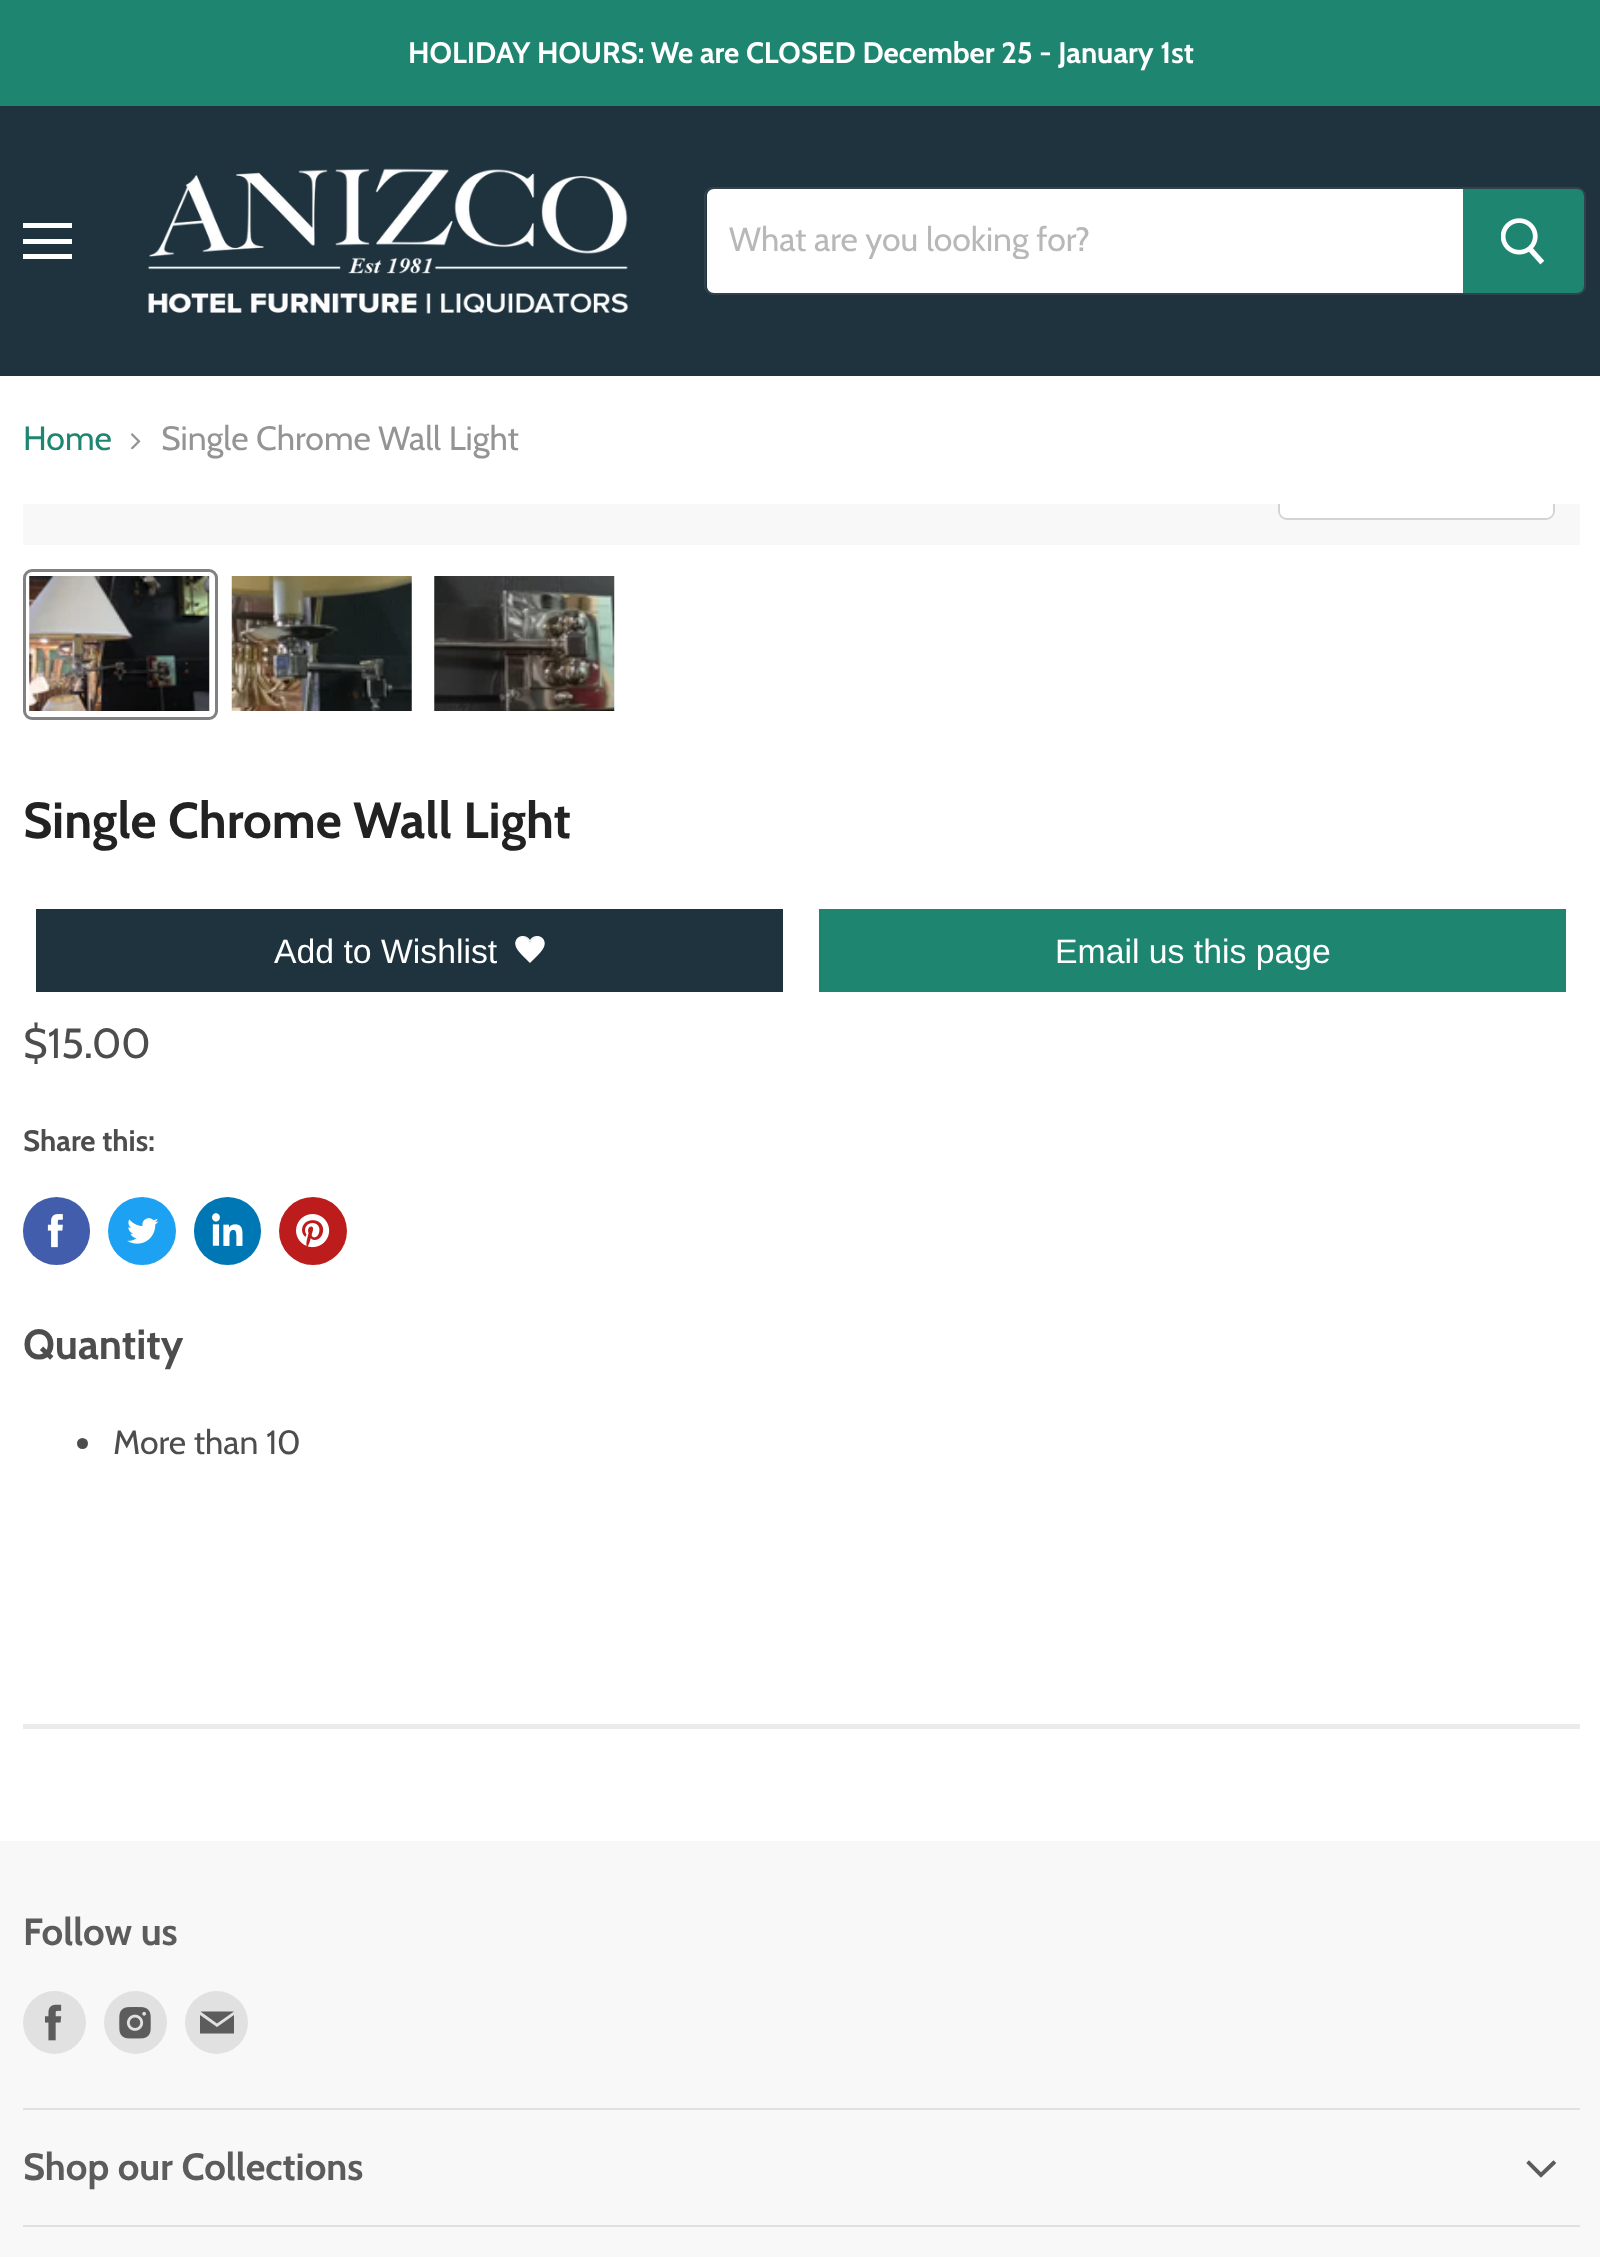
<svg xmlns="http://www.w3.org/2000/svg" width="1600" height="2257" viewBox="0 0 1600 2257">
  <style>
    .t1 { font: bold 29.5px Cabin; fill: #fff; }
    .t2 { font: 33.75px Cabin; fill: #b8b8b8; }
    .t3 { font: 33.75px Cabin; fill: #1e8570; }
    .t4 { font: 33.75px Cabin; fill: #949494; }
    .t5 { font: bold 50.6px Cabin; fill: #222; }
    .t6 { font: 33.75px Liberation Sans; fill: #fff; }
    .t7 { font: 42px Cabin; fill: #4d4d4d; }
    .t8 { font: bold 29.5px Cabin; fill: #4d4d4d; }
    .t9 { font: bold 42px Cabin; fill: #4d4d4d; }
    .t10 { font: 33.75px Cabin; fill: #4d4d4d; }
    .t11 { font: bold 38px Cabin; fill: #5c5c5c; }
  </style>
  <defs>
    <clipPath id="clip1"><rect x="729" y="218" width="711" height="41"/></clipPath>
    <clipPath id="clip2"><rect x="23" y="504" width="1557" height="41"/></clipPath>
  </defs>
  <rect width="100%" height="100%" fill="#fff"/>
  <rect x="0" y="0" width="1600" height="106" fill="#1e8570"/>
  <text x="408" y="63" class="t1">HOLIDAY HOURS: We are CLOSED December 25 - January 1st</text>
  <rect x="0" y="106" width="1600" height="270" fill="#1f333f"/>
  <rect x="23" y="223" width="49" height="5" fill="#fff"/>
  <rect x="23" y="239" width="49" height="5" fill="#fff"/>
  <rect x="23" y="254" width="49" height="5" fill="#fff"/>
  <image x="148" y="168" width="481" height="146" href="images/1.png"/>
  <rect x="705" y="188" width="880" height="106" rx="8" fill="none" stroke="#80808033" stroke-width="2"/>
  <path d="M714 189H1463V293H714C710 293 707 290 707 286V196C707 192 710 189 714 189Z" fill="#fff"/>
  <g clip-path="url(#clip1)">
    <text x="729" y="251" class="t2">What are you looking for?</text>
  </g>
  <path d="M1464 190H1577C1580.5 190 1583 192.5 1583 196V286C1583 289.5 1580.5 292 1577 292H1464Z" fill="#1e8570" stroke="#1e8570" stroke-width="2"/>
  <image x="1501" y="218" width="44" height="47" href="images/2.png"/>
  <text x="23" y="450" class="t3">Home</text>
  <image x="130" y="433" width="11" height="17" href="images/3.png"/>
  <text x="161" y="450" class="t4">Single Chrome Wall Light</text>
  <rect x="23" y="504" width="1557" height="41" fill="#f8f8f8"/>
  <g clip-path="url(#clip2)">
    <rect x="1279" y="453" width="275" height="66" rx="8" fill="none" stroke="#d3d3d3" stroke-width="2"/>
  </g>
  <path d="M1280 504H1553V511C1553 515 1550 518 1546 518H1287C1283 518 1280 515 1280 511Z" fill="#ffffffe6"/>
  <rect x="24.5" y="570.5" width="192" height="148" rx="7.5" fill="none" stroke="#818181" stroke-width="3"/>
  <image x="29" y="576" width="181" height="135" href="images/4.png"/>
  <image x="231" y="576" width="181" height="135" href="images/5.png"/>
  <image x="434" y="576" width="181" height="135" href="images/6.png"/>
  <text x="23" y="838" class="t5">Single Chrome Wall Light</text>
  <rect x="36" y="909" width="747" height="83" fill="#1f333f"/>
  <text x="274" y="963" class="t6">Add to Wishlist</text>
  <image x="515" y="936" width="30" height="27" href="images/7.png"/>
  <rect x="819" y="909" width="747" height="83" fill="#1e8570"/>
  <text x="1055" y="963" class="t6">Email us this page</text>
  <text x="23" y="1058" class="t7">$15.00</text>
  <text x="23" y="1151" class="t8">Share this:</text>
  <rect x="23" y="1197" width="67" height="68" rx="33.5" fill="#425dab"/>
  <image x="47" y="1214" width="16" height="34" href="images/8.png"/>
  <circle cx="142" cy="1231" r="34" fill="#1da1f2"/>
  <image x="127" y="1218" width="32" height="26" href="images/9.png"/>
  <rect x="194" y="1197" width="67" height="68" rx="33.5" fill="#0077b5"/>
  <image x="212" y="1213" width="31" height="33" href="images/10.png"/>
  <circle cx="313" cy="1231" r="34" fill="#bd1c1c"/>
  <image x="296" y="1214" width="34" height="34" href="images/11.png"/>
  <text x="23" y="1359" class="t9">Quantity</text>
  <circle cx="82.5" cy="1443.5" r="5.5" fill="#4d4d4d"/>
  <text x="113" y="1454" class="t10">More than 10</text>
  <rect x="23" y="1724" width="1557" height="5" fill="#80808029"/>
  <rect x="0" y="1841" width="1600" height="416" fill="#f8f8f8"/>
  <rect x="23" y="2108" width="1557" height="2" fill="#e1e1e1"/>
  <text x="23" y="1945" class="t11">Follow us</text>
  <circle cx="54.5" cy="2022.5" r="31.5" fill="#e1e1e1"/>
  <image x="45" y="2004" width="17" height="37" href="images/12.png"/>
  <circle cx="135.5" cy="2022.5" r="31.5" fill="#e1e1e1"/>
  <image x="119" y="2007" width="32" height="32" href="images/13.png"/>
  <circle cx="216.5" cy="2022.5" r="31.5" fill="#e1e1e1"/>
  <path d="M234 2011.5H200.5L217 2023.5ZM217 2027L200 2015V2033.5H234V2015Z" fill="#5c5c5c" fill-rule="evenodd"/>
  <rect x="23" y="2225" width="1557" height="2" fill="#e1e1e1"/>
  <text x="23" y="2180" class="t11">Shop our Collections</text>
  <path d="M1541 2175L1553.5 2163M1541 2175L1529 2163" fill="none" stroke="#5c5c5c" stroke-width="3.9" stroke-linecap="square"/>
</svg>
